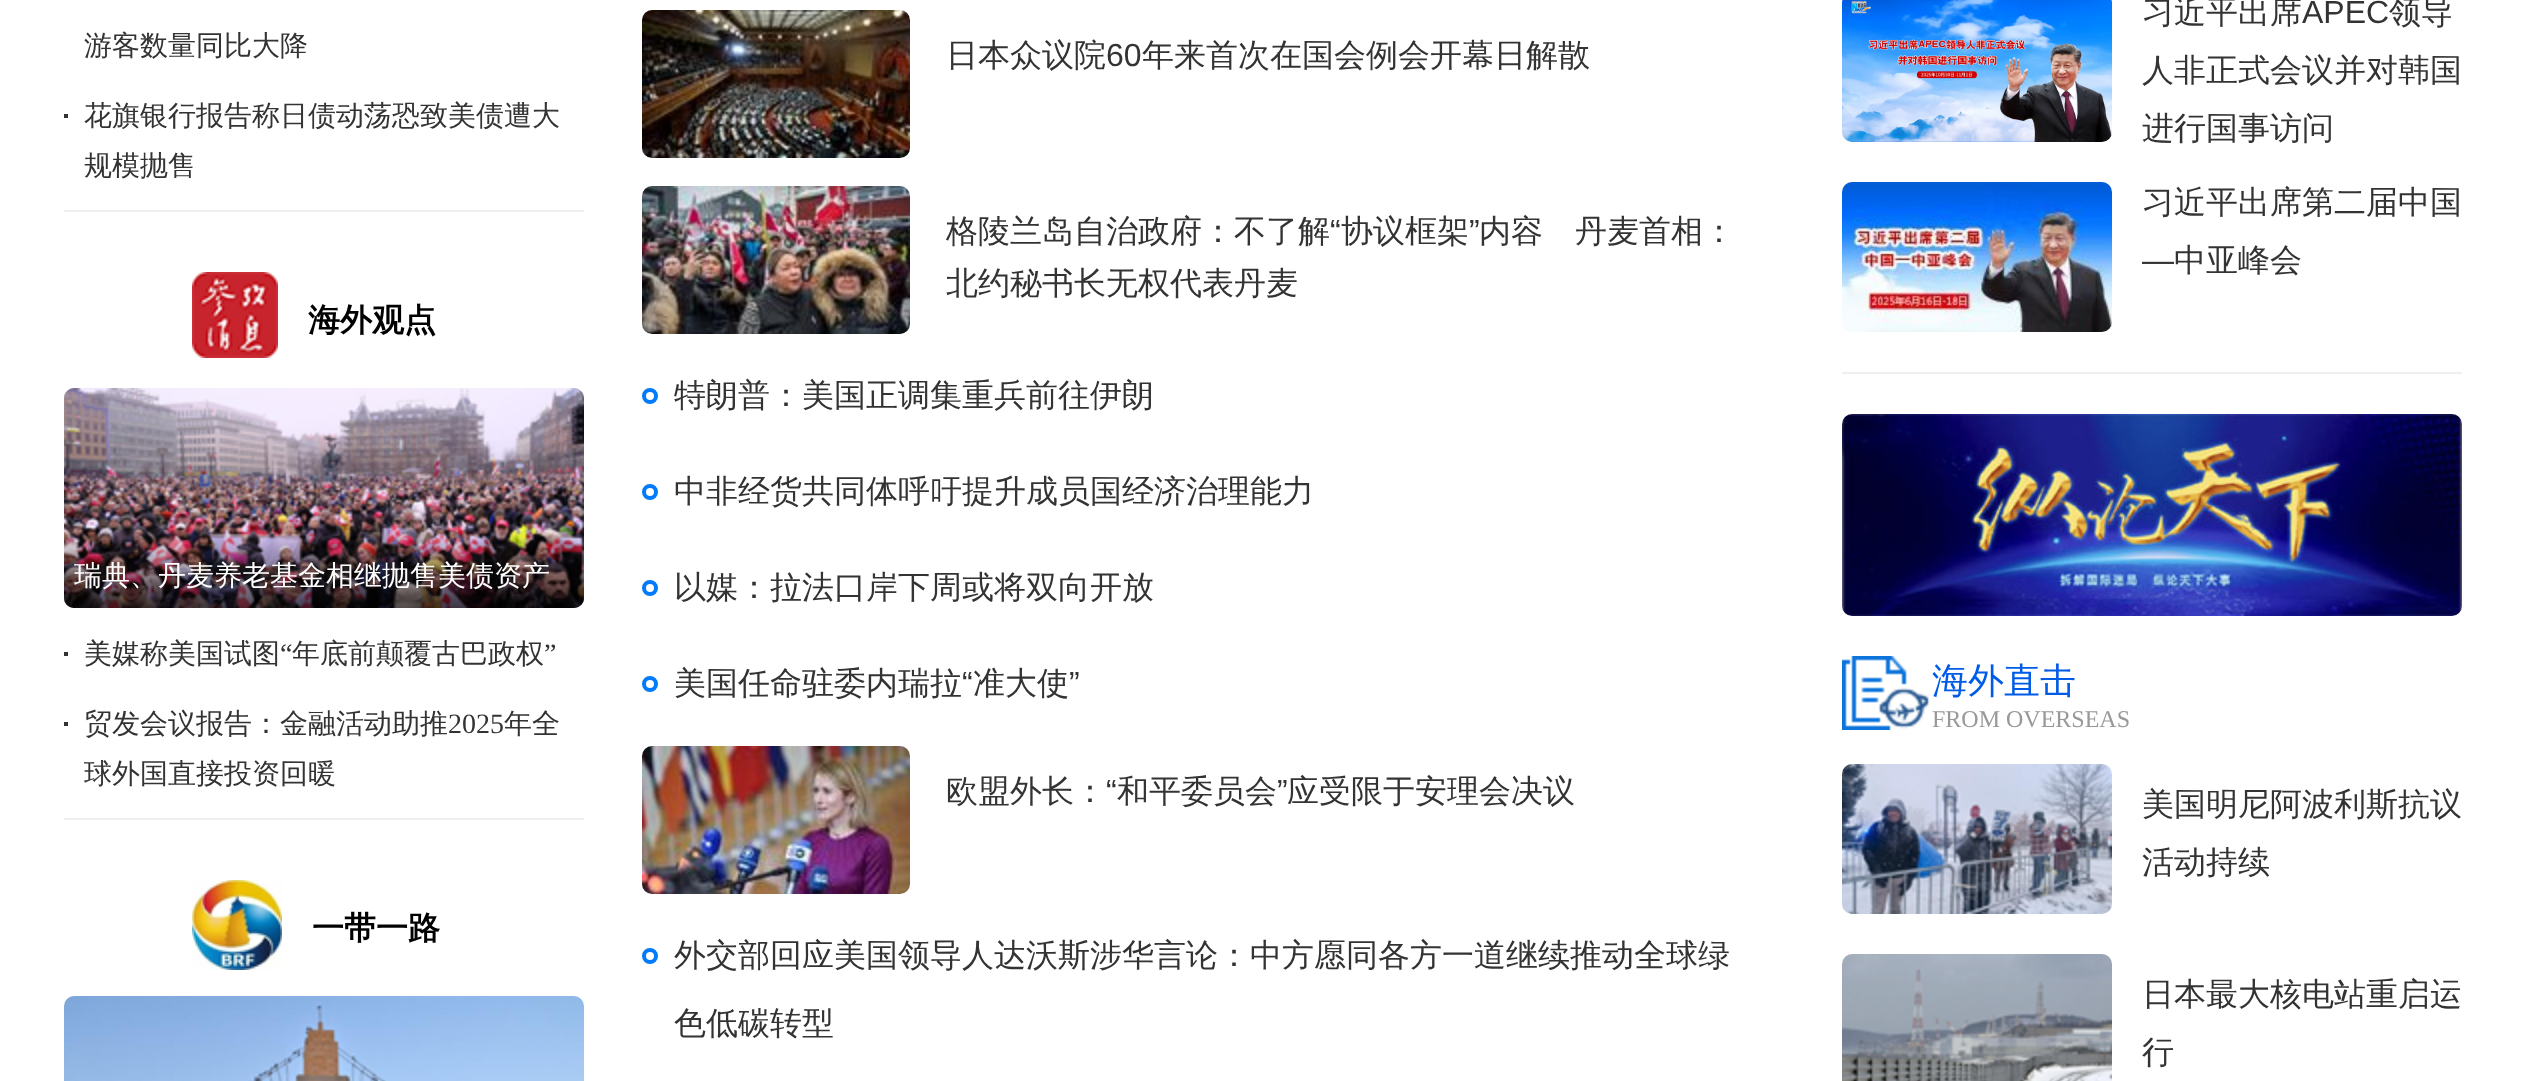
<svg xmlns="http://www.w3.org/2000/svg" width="2527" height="1081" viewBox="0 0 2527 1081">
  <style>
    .t1 { font: 500 28px WenQuanYi Zen Hei; fill: #333; }
    .t2 { font: bold 32px WenQuanYi Zen Hei; fill: #000; }
    .t3 { font: 500 28px WenQuanYi Zen Hei; fill: #fff; }
    .t4 { font: 28px Liberation Serif; fill: #333; }
    .t5 { font: 500 32px WenQuanYi Zen Hei; fill: #333; }
    .t6 { font: 32px Liberation Sans; fill: #333; }
    .t7 { font: 500 36px WenQuanYi Zen Hei; fill: #005ce7; }
    .t8 { font: 24px Liberation Serif; fill: #999; }
  </style>
  <defs>
    <linearGradient id="g1" gradientUnits="userSpaceOnUse" x1="324" y1="528" x2="324" y2="608"><stop offset="0" stop-color="#000" stop-opacity="0"/><stop offset="1" stop-color="#000" stop-opacity="0.65"/></linearGradient>
  </defs>
  <rect width="100%" height="100%" fill="#fff"/>
  <rect x="64" y="210" width="520" height="2" fill="#efefef"/>
  <text x="84" y="55" class="t1">游客数量同比大降</text>
  <rect x="64" y="114" width="4" height="4" fill="#333"/>
  <text x="84" y="125" class="t1">花旗银行报告称日债动荡恐致美债遭大</text>
  <text x="84" y="175" class="t1">规模抛售</text>
  <rect x="64" y="818" width="520" height="2" fill="#efefef"/>
  <image x="192" y="272" width="86" height="86" href="images/1.png"/>
  <text x="308" y="331" class="t2">海外观点</text>
  <image x="64" y="388" width="520" height="220" href="images/2.png"/>
  <path d="M64 528H584V598C584 603.5 579.5 608 574 608H74C68.5 608 64 603.5 64 598Z" fill="url(#g1)"/>
  <text x="74" y="585" class="t3">瑞典、丹麦养老基金相继抛售美债资产</text>
  <text x="84" y="663" class="t1">美媒称美国试图</text>
  <text x="280" y="663" class="t4">“</text>
  <text x="292" y="663" class="t1">年底前颠覆古巴政权</text>
  <text x="544" y="663" class="t4">”</text>
  <rect x="64" y="652" width="4" height="4" fill="#333"/>
  <rect x="64" y="722" width="4" height="4" fill="#333"/>
  <text x="84" y="733" class="t1">贸发会议报告：金融活动助推</text>
  <text x="448" y="733" class="t4">2025</text>
  <text x="504" y="733" class="t1">年全</text>
  <text x="84" y="783" class="t1">球外国直接投资回暖</text>
  <image x="192" y="880" width="90" height="90" href="images/3.png"/>
  <text x="312" y="939" class="t2">一带一路</text>
  <image x="64" y="996" width="520" height="85" href="images/4.png"/>
  <image x="642" y="10" width="268" height="148" href="images/5.png"/>
  <text x="946" y="66" class="t5">日本众议院</text>
  <text x="1106" y="66" class="t6">60</text>
  <text x="1142" y="66" class="t5">年来首次在国会例会开幕日解散</text>
  <image x="642" y="186" width="268" height="148" href="images/6.png"/>
  <text x="946" y="242" class="t5">格陵兰岛自治政府：不了解</text>
  <text x="1330" y="242" class="t6">“</text>
  <text x="1341" y="242" class="t5">协议框架</text>
  <text x="1469" y="242" class="t6">”</text>
  <text x="1479" y="242" class="t5">内容　丹麦首相：</text>
  <text x="946" y="294" class="t5">北约秘书长无权代表丹麦</text>
  <circle cx="650" cy="396" r="6" fill="none" stroke="#027bfb" stroke-width="4"/>
  <text x="674" y="406" class="t5">特朗普：美国正调集重兵前往伊朗</text>
  <circle cx="650" cy="492" r="6" fill="none" stroke="#027bfb" stroke-width="4"/>
  <text x="674" y="502" class="t5">中非经货共同体呼吁提升成员国经济治理能力</text>
  <circle cx="650" cy="588" r="6" fill="none" stroke="#027bfb" stroke-width="4"/>
  <text x="674" y="598" class="t5">以媒：拉法口岸下周或将双向开放</text>
  <circle cx="650" cy="684" r="6" fill="none" stroke="#027bfb" stroke-width="4"/>
  <text x="674" y="694" class="t5">美国任命驻委内瑞拉</text>
  <text x="962" y="694" class="t6">“</text>
  <text x="973" y="694" class="t5">准大使</text>
  <text x="1069" y="694" class="t6">”</text>
  <image x="642" y="746" width="268" height="148" href="images/7.png"/>
  <text x="946" y="802" class="t5">欧盟外长：</text>
  <text x="1106" y="802" class="t6">“</text>
  <text x="1117" y="802" class="t5">和平委员会</text>
  <text x="1277" y="802" class="t6">”</text>
  <text x="1287" y="802" class="t5">应受限于安理会决议</text>
  <circle cx="650" cy="956" r="6" fill="none" stroke="#027bfb" stroke-width="4"/>
  <text x="674" y="966" class="t5">外交部回应美国领导人达沃斯涉华言论：中方愿同各方一道继续推动全球绿</text>
  <text x="674" y="1034" class="t5">色低碳转型</text>
  <rect x="1842" y="372" width="620" height="2" fill="#efefef"/>
  <image x="1842" y="0" width="270" height="142" href="images/8.png"/>
  <text x="2142" y="23" class="t5">习近平出席</text>
  <text x="2302" y="23" class="t6">APEC</text>
  <text x="2389" y="23" class="t5">领导</text>
  <text x="2142" y="81" class="t5">人非正式会议并对韩国</text>
  <text x="2142" y="139" class="t5">进行国事访问</text>
  <image x="1842" y="182" width="270" height="150" href="images/9.png"/>
  <text x="2142" y="213" class="t5">习近平出席第二届中国</text>
  <text x="2142" y="271" class="t6">—</text>
  <text x="2174" y="271" class="t5">中亚峰会</text>
  <image x="1842" y="414" width="620" height="202" href="images/10.png"/>
  <image x="1842" y="656" width="88" height="74" href="images/11.png"/>
  <text x="1932" y="693" class="t7">海外直击</text>
  <text x="1932" y="727" class="t8">FROM OVERSEAS</text>
  <image x="1842" y="764" width="270" height="150" href="images/12.png"/>
  <text x="2142" y="815" class="t5">美国明尼阿波利斯抗议</text>
  <text x="2142" y="873" class="t5">活动持续</text>
  <image x="1842" y="954" width="270" height="127" href="images/13.png"/>
  <text x="2142" y="1005" class="t5">日本最大核电站重启运</text>
  <text x="2142" y="1063" class="t5">行</text>
</svg>
